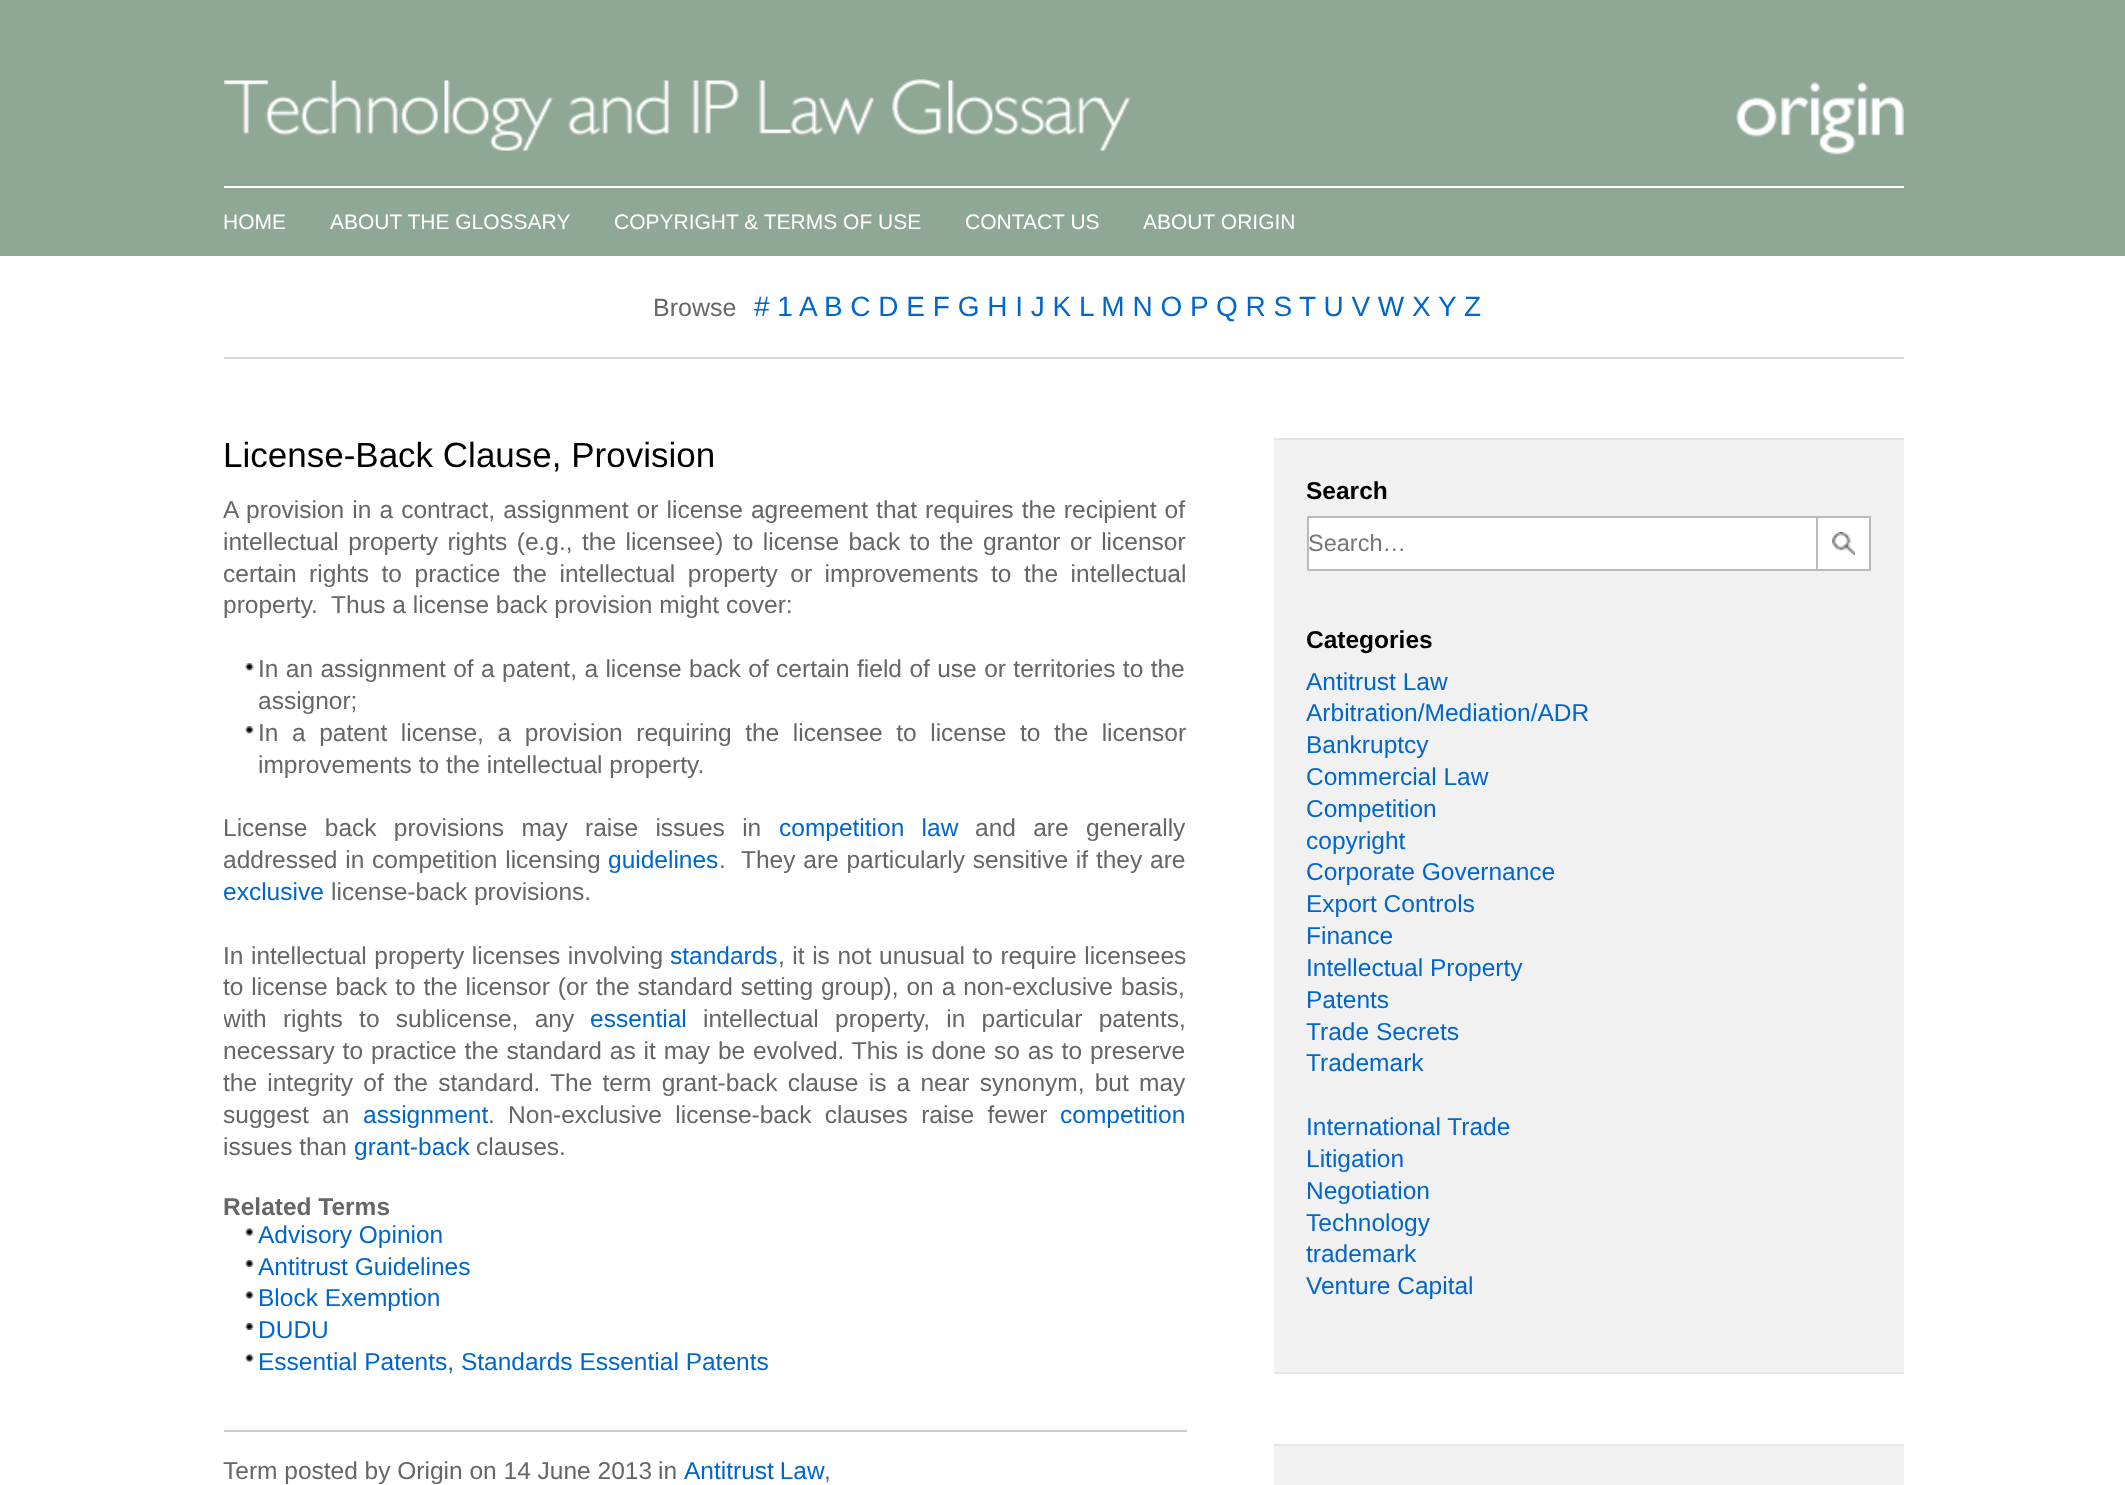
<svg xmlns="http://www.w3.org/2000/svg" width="2125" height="1485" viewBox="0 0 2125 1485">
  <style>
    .t1 { font: 21px Liberation Sans; fill: #fff; }
    .t2 { font: 25px Liberation Sans; fill: #666; }
    .t3 { font: 28px Liberation Sans; fill: #06c; }
    .t4 { font: 35px Liberation Sans; fill: #000; }
    .t5 { font: 24.5px Liberation Sans; fill: #666; }
    .t6 { font: 24.5px Liberation Sans; fill: #06c; }
    .t7 { font: bold 24.5px Liberation Sans; fill: #666; }
    .t8 { font: bold 24.5px Liberation Sans; fill: #000; }
    .t9 { font: 23.5px Liberation Sans; fill: #757575; }
  </style>
  <defs>
    <clipPath id="clip1"><rect x="224" y="256" width="1680" height="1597"/></clipPath>
  </defs>
  <rect width="100%" height="100%" fill="#fff"/>
  <rect x="0" y="0" width="2125" height="256" fill="#8fa795"/>
  <image x="224" y="79" width="907" height="72" href="images/1.png"/>
  <image x="1736" y="82" width="168" height="73" href="images/2.png"/>
  <rect x="224" y="186" width="1680" height="2" fill="#fff"/>
  <text x="223" y="229" class="t1">HOME</text>
  <text x="330" y="229" class="t1">ABOUT THE GLOSSARY</text>
  <text x="614" y="229" class="t1">COPYRIGHT &amp; TERMS OF USE</text>
  <text x="965" y="229" class="t1">CONTACT US</text>
  <text x="1143" y="229" class="t1">ABOUT ORIGIN</text>
  <rect x="224" y="357" width="1680" height="2" fill="#d9d9d9"/>
  <text x="653" y="316" class="t2">Browse</text>
  <text x="754" y="316" class="t3"># 1</text>
  <text x="799" y="316" class="t3">A B C D E F G H I J K L M N O P Q R S</text>
  <text x="1299" y="316" class="t3">T U V W X</text>
  <text x="1438" y="316" class="t3">Y Z</text>
  <text x="223" y="467" class="t4">License-Back Clause, Provision</text>
  <text x="223" y="518" word-spacing="1.3" class="t5">A provision in a contract, assignment or license agreement that requires the recipient of</text>
  <text x="223" y="550" word-spacing="2.6" class="t5">intellectual property rights (e.g., the licensee) to license back to the grantor or licensor</text>
  <text x="223" y="582" word-spacing="5.75" class="t5">certain rights to practice the intellectual property or improvements to the intellectual</text>
  <text x="223" y="613" class="t5" xml:space="preserve">property.  Thus a license back provision might cover:</text>
  <image x="245" y="663" width="9" height="8" href="images/3.png"/>
  <text x="258" y="677" word-spacing="0.6" class="t5">In an assignment of a patent, a license back of certain field of use or territories to the</text>
  <text x="258" y="709" class="t5">assignor;</text>
  <image x="245" y="726" width="9" height="8" href="images/3.png"/>
  <text x="258" y="741" word-spacing="6.75" class="t5">In a patent license, a provision requiring the licensee to license to the licensor</text>
  <text x="258" y="773" class="t5">improvements to the intellectual property.</text>
  <text x="223" y="836" word-spacing="10.5" class="t5">License back provisions may raise issues in</text>
  <text x="779" y="836" word-spacing="10.5" class="t6">competition law</text>
  <text x="975" y="836" word-spacing="10.5" class="t5">and are generally</text>
  <text x="223" y="868" word-spacing="1" class="t5">addressed in competition licensing</text>
  <text x="608" y="868" class="t6">guidelines</text>
  <text x="719" y="868" word-spacing="1" class="t5" xml:space="preserve">.  They are particularly sensitive if they are</text>
  <text x="223" y="900" class="t6">exclusive</text>
  <text x="331" y="900" class="t5">license-back provisions.</text>
  <text x="223" y="964" word-spacing="0.75" class="t5">In intellectual property licenses involving</text>
  <text x="670" y="964" class="t6">standards</text>
  <text x="778" y="964" word-spacing="0.75" class="t5">, it is not unusual to require licensees</text>
  <text x="223" y="995" word-spacing="1.1" class="t5">to license back to the licensor (or the standard setting group), on a non-exclusive basis,</text>
  <g clip-path="url(#clip1)">
    <text x="223" y="1027" word-spacing="9.5" class="t5">with rights to sublicense, any</text>
  </g>
  <text x="590" y="1027" class="t6">essential</text>
  <text x="703" y="1027" word-spacing="9.5" class="t5">intellectual property, in particular patents,</text>
  <text x="223" y="1059" word-spacing="1.1" class="t5">necessary to practice the standard as it may be evolved. This is done so as to preserve</text>
  <text x="223" y="1091" word-spacing="3.4" class="t5">the integrity of the standard. The term grant-back clause is a near synonym, but may</text>
  <text x="223" y="1123" word-spacing="6.5" class="t5">suggest an</text>
  <text x="363" y="1123" class="t6">assignment</text>
  <text x="488" y="1123" word-spacing="6.5" class="t5">. Non-exclusive license-back clauses raise fewer</text>
  <text x="1060" y="1123" class="t6">competition</text>
  <text x="223" y="1155" class="t5">issues than</text>
  <text x="354" y="1155" class="t6">grant-back</text>
  <text x="476" y="1155" class="t5">clauses.</text>
  <text x="223" y="1215" class="t7">Related Terms</text>
  <image x="245" y="1228" width="9" height="8" href="images/4.png"/>
  <text x="258" y="1243" class="t6">Advisory Opinion</text>
  <image x="245" y="1260" width="9" height="7" href="images/5.png"/>
  <text x="258" y="1275" class="t6">Antitrust Guidelines</text>
  <image x="245" y="1291" width="9" height="8" href="images/4.png"/>
  <text x="258" y="1306" class="t6">Block Exemption</text>
  <image x="245" y="1323" width="9" height="7" href="images/5.png"/>
  <text x="258" y="1338" class="t6">DUDU</text>
  <image x="245" y="1354" width="9" height="8" href="images/4.png"/>
  <text x="258" y="1370" class="t6">Essential Patents, Standards Essential Patents</text>
  <rect x="224" y="1430" width="963" height="2" fill="#cbcbcb"/>
  <text x="223" y="1479" class="t5">Term posted by Origin on 14 June 2013</text>
  <text x="658" y="1479" class="t5">in</text>
  <text x="684" y="1479" word-spacing="-1" class="t6">Antitrust Law</text>
  <text x="824" y="1479" class="t5">,</text>
  <rect x="1274" y="440" width="630" height="932" fill="#f1f1f1"/>
  <rect x="1274" y="438" width="630" height="2" fill="#e5e5e5"/>
  <text x="1306" y="499" class="t8">Search</text>
  <rect x="1308" y="517" width="509" height="53" fill="#fff" stroke="#bababa" stroke-width="2"/>
  <text x="1308" y="551" class="t9">Search…</text>
  <rect x="1818" y="518" width="51" height="51" fill="#fff"/>
  <rect x="1818" y="516" width="53" height="2" fill="#bababa"/>
  <rect x="1869" y="516" width="2" height="55" fill="#bababa"/>
  <rect x="1818" y="569" width="53" height="2" fill="#bababa"/>
  <image x="1832" y="532" width="23" height="23" href="images/6.png"/>
  <rect x="1274" y="1372" width="630" height="2" fill="#e5e5e5"/>
  <text x="1306" y="648" class="t8">Categories</text>
  <text x="1306" y="690" class="t6">Antitrust Law</text>
  <text x="1306" y="721" class="t6">Arbitration/Mediation/ADR</text>
  <text x="1306" y="753" class="t6">Bankruptcy</text>
  <text x="1306" y="785" class="t6">Commercial Law</text>
  <text x="1306" y="817" class="t6">Competition</text>
  <text x="1306" y="849" class="t6">copyright</text>
  <text x="1306" y="880" class="t6">Corporate Governance</text>
  <text x="1306" y="912" class="t6">Export Controls</text>
  <text x="1306" y="944" class="t6">Finance</text>
  <text x="1306" y="976" class="t6">Intellectual Property</text>
  <text x="1306" y="1008" class="t6">Patents</text>
  <text x="1306" y="1040" class="t6">Trade Secrets</text>
  <text x="1306" y="1071" class="t6">Trademark</text>
  <text x="1306" y="1135" class="t6">International Trade</text>
  <text x="1306" y="1167" class="t6">Litigation</text>
  <text x="1306" y="1199" class="t6">Negotiation</text>
  <text x="1306" y="1231" class="t6">Technology</text>
  <text x="1306" y="1262" class="t6">trademark</text>
  <text x="1306" y="1294" class="t6">Venture Capital</text>
  <rect x="1274" y="1446" width="630" height="39" fill="#f1f1f1"/>
  <rect x="1274" y="1444" width="630" height="2" fill="#e5e5e5"/>
</svg>
